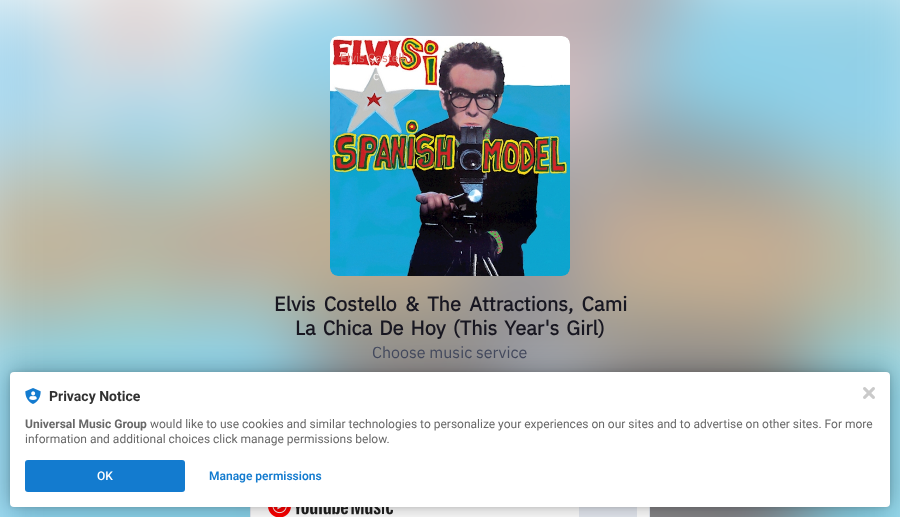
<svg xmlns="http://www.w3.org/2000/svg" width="900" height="517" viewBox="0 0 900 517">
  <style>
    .t1 { font: 12px IBM Plex Sans; fill: #db7972; }
    .t2 { font: 12px IBM Plex Sans; fill: #f7f7f7; }
    .t3 { font: bold 20px IBM Plex Sans; fill: #181721; }
    .t4 { font: 16px IBM Plex Sans; fill: #454b5f; }
    .t5 { font: bold 14px Roboto; fill: #323232; }
    .t6 { font: bold 12px Roboto; fill: #686868; }
    .t7 { font: 12px Roboto; fill: #686868; }
    .t8 { font: 500 12px Roboto; fill: #fff; }
    .t9 { font: 600 12px Roboto; fill: #137bcf; }
  </style>
  <rect width="100%" height="100%" fill="#fff"/>
  <image x="0" y="0" width="900" height="517" href="images/1.png"/>
  <image x="330" y="36" width="240" height="240" href="images/2.png"/>
  <text x="340" y="62" class="t1">Elvis Costell…</text>
  <text x="373" y="80" class="t2">c</text>
  <text x="274" y="311" word-spacing="3.5" class="t3">Elvis Costello &amp; The Attractions, Cami</text>
  <text x="295" y="335" word-spacing="2.25" class="t3">La Chica De Hoy (This Year's Girl)</text>
  <text x="372" y="358" class="t4">Choose music service</text>
  <rect x="250.5" y="396.5" width="399" height="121" fill="none" stroke="#e6eaf2"/>
  <rect x="251" y="507" width="398" height="10" fill="#fff"/>
  <image x="268" y="507" width="125" height="10" href="images/3.png"/>
  <rect x="579" y="507" width="58" height="10" fill="#e6eaf2"/>
  <rect x="10" y="372" width="880" height="135" rx="4" fill="#0000001f" filter="blur(2px)"/>
  <rect x="10" y="372" width="880" height="135" rx="4" fill="#0000004d" filter="blur(12px)"/>
  <rect x="10" y="372" width="880" height="135" rx="4" fill="#fff"/>
  <image x="863" y="387" width="12" height="12" href="images/4.png"/>
  <image x="25" y="388" width="16" height="16" href="images/5.png"/>
  <text x="49" y="401" class="t5">Privacy Notice</text>
  <text x="25" y="428" class="t6">Universal Music Group</text>
  <text x="150" y="428" class="t7">would like to use cookies and similar technologies to personalize your experiences on our sites and to advertise on other sites. For more</text>
  <text x="25" y="443" class="t7">information and additional choices click manage permissions below.</text>
  <rect x="25" y="460" width="160" height="32" rx="3" fill="#137bcf"/>
  <text x="97" y="480" class="t8">OK</text>
  <text x="209" y="480" class="t9">Manage permissions</text>
</svg>
